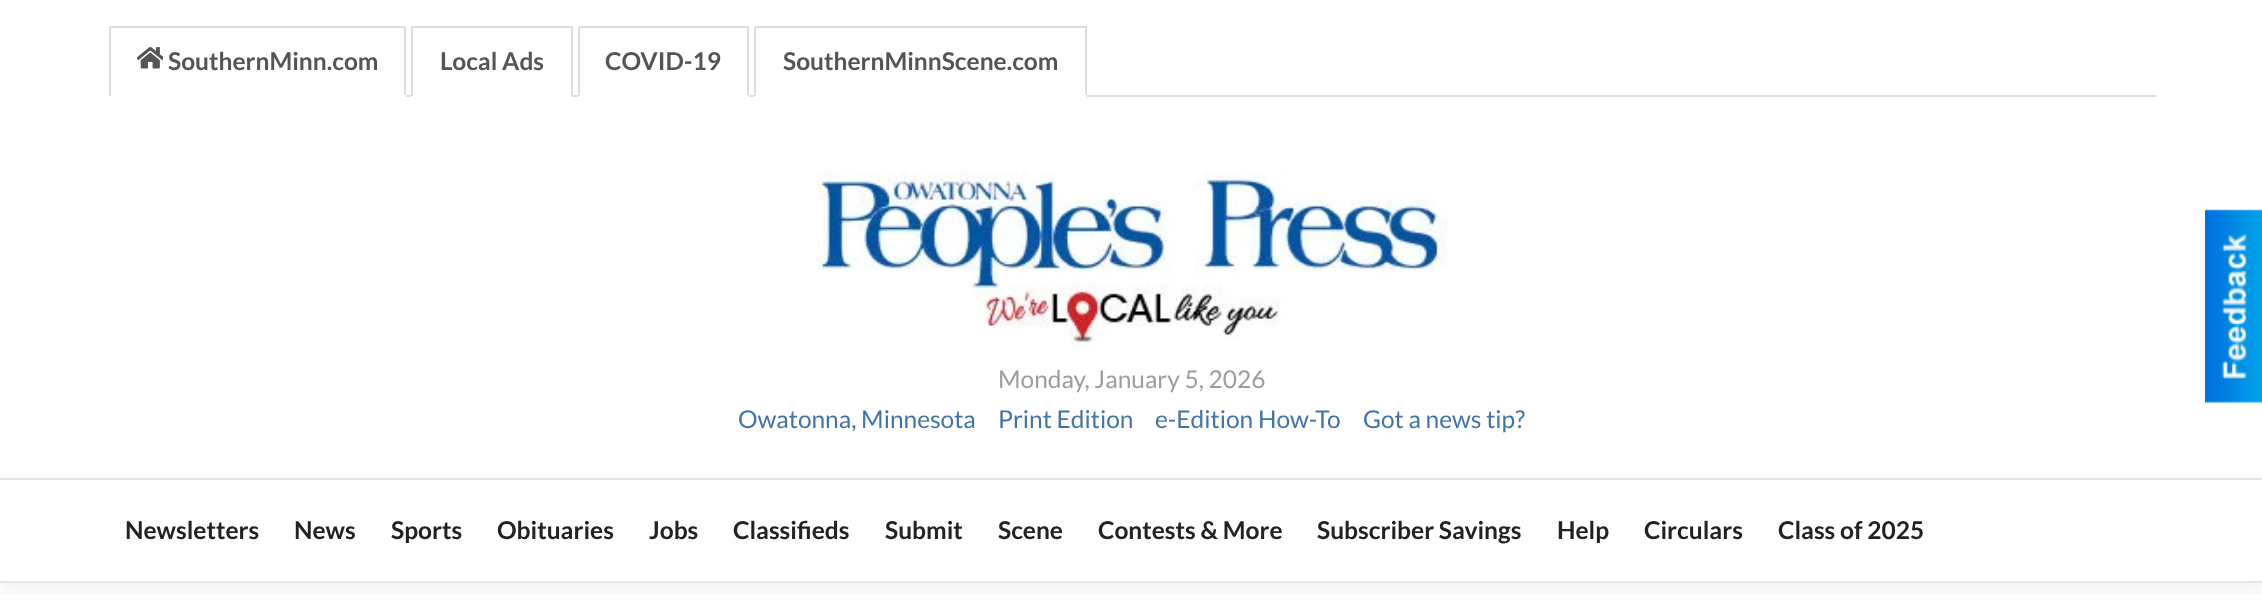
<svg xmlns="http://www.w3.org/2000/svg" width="2262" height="610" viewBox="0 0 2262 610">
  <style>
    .t1 { font: bold 24.5px Lato; fill: #555; }
    .t2 { font: 24.5px Lato; fill: #9e9c9c; }
    .t3 { font: 24.5px Lato; fill: #4175aa; }
    .t4 { font: bold 24.5px Lato; fill: #222; }
  </style>
  <defs>
    <clipPath id="clip1"><rect x="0" y="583" width="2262" height="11"/></clipPath>
  </defs>
  <rect width="100%" height="100%" fill="#fff"/>
  <g clip-path="url(#clip1)">
    <rect x="0" y="9" width="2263" height="583" fill="#0000000d" filter="blur(9px)"/>
  </g>
  <rect x="0" y="581" width="2262" height="2" fill="#0000001a"/>
  <rect x="406" y="95" width="1750" height="2" fill="#ddd"/>
  <rect x="109" y="26" width="297" height="2" fill="#ddd"/>
  <rect x="404" y="26" width="2" height="70" fill="#ddd"/>
  <rect x="404" y="95" width="2" height="1" fill="#fff"/>
  <rect x="109" y="26" width="2" height="70" fill="#ddd"/>
  <image x="137" y="47" width="26" height="22" href="images/1.png"/>
  <text x="168" y="70" class="t1">SouthernMinn.com</text>
  <rect x="411" y="26" width="161" height="2" fill="#ddd"/>
  <rect x="571" y="26" width="2" height="70" fill="#ddd"/>
  <rect x="411" y="95" width="161" height="2" fill="#fff"/>
  <rect x="411" y="26" width="2" height="70" fill="#ddd"/>
  <text x="440" y="70" class="t1">Local Ads</text>
  <rect x="578" y="26" width="171" height="2" fill="#ddd"/>
  <rect x="747" y="26" width="2" height="70" fill="#ddd"/>
  <rect x="578" y="95" width="171" height="2" fill="#fff"/>
  <rect x="578" y="26" width="2" height="70" fill="#ddd"/>
  <text x="605" y="70" class="t1">COVID-19</text>
  <rect x="754" y="26" width="333" height="2" fill="#ddd"/>
  <rect x="1085" y="26" width="2" height="70" fill="#ddd"/>
  <rect x="754" y="95" width="333" height="2" fill="#fff"/>
  <rect x="754" y="26" width="2" height="70" fill="#ddd"/>
  <text x="783" y="70" class="t1">SouthernMinnScene.com</text>
  <image x="817" y="171" width="631" height="176" href="images/2.png"/>
  <text x="998" y="388" class="t2">Monday, January 5, 2026</text>
  <text x="738" y="428" class="t3">Owatonna, Minnesota</text>
  <text x="998" y="428" class="t3">Print Edition</text>
  <text x="1155" y="428" class="t3">e-Edition How-To</text>
  <text x="1363" y="428" class="t3">Got a news tip?</text>
  <rect x="0" y="478" width="2262" height="2" fill="#e6e6e6"/>
  <text x="125" y="539" class="t4">Newsletters</text>
  <text x="294" y="539" class="t4">News</text>
  <text x="391" y="539" class="t4">Sports</text>
  <text x="497" y="539" class="t4">Obituaries</text>
  <text x="649" y="539" class="t4">Jobs</text>
  <text x="733" y="539" class="t4">Classifieds</text>
  <text x="885" y="539" class="t4">Submit</text>
  <text x="998" y="539" class="t4">Scene</text>
  <text x="1098" y="539" class="t4">Contests &amp; More</text>
  <text x="1317" y="539" class="t4">Subscriber Savings</text>
  <text x="1557" y="539" class="t4">Help</text>
  <text x="1644" y="539" class="t4">Circulars</text>
  <text x="1778" y="539" class="t4">Class of 2025</text>
  <image x="2205" y="209" width="57" height="194" href="images/3.png"/>
</svg>
